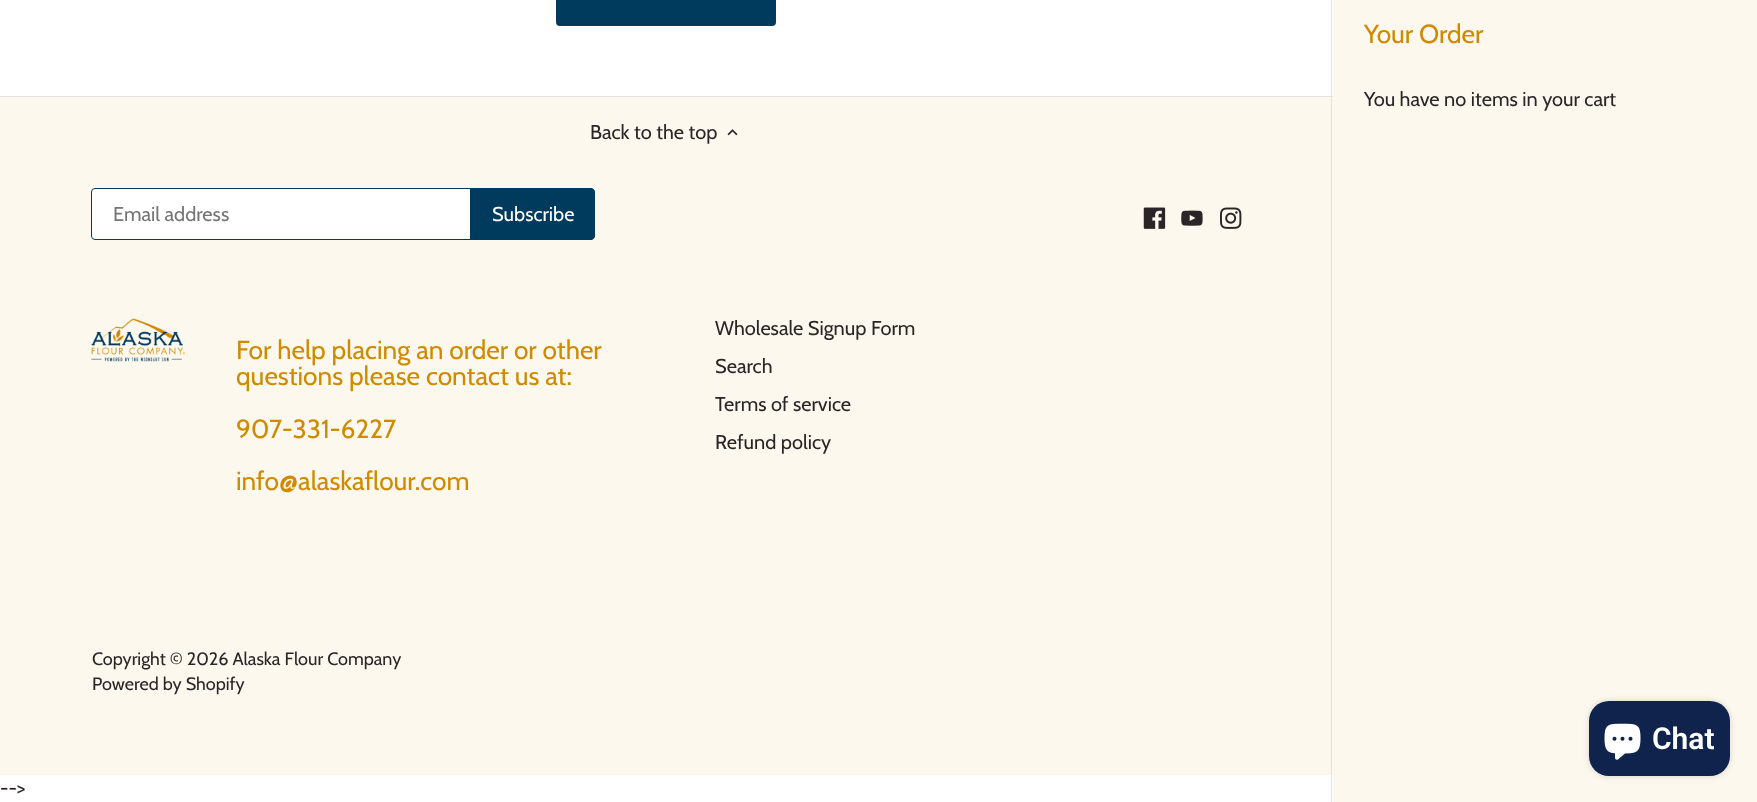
<svg xmlns="http://www.w3.org/2000/svg" width="1757" height="802" viewBox="0 0 1757 802">
  <style>
    .t1 { font: 26.25px Cabin; fill: #cf8a00; }
    .t2 { font: 20px Cabin; fill: #2c2528; }
    .t3 { font: 20px Cabin; fill: #757575; }
    .t4 { font: 20px Cabin; fill: #fff; }
    .t5 { font: 18px Cabin; fill: #2c2528; }
    .t6 { font: 600 30px Roboto; fill: #fff; }
  </style>
  <rect width="100%" height="100%" fill="#fff"/>
  <rect x="1333" y="0" width="424" height="802" fill="#fcf8ed"/>
  <rect x="0" y="97" width="1333" height="678" fill="#fcf8ed"/>
  <rect x="0" y="96" width="1333" height="1" fill="#e2e2e2"/>
  <rect x="1331" y="0" width="1" height="802" fill="#e2e2e2"/>
  <text x="1364" y="43" class="t1">Your Order</text>
  <text x="1364" y="106" class="t2">You have no items in your cart</text>
  <rect x="557.5" y="-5.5" width="217" height="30" rx="2.5" fill="#003a5d" stroke="#003a5d" stroke-width="3"/>
  <text x="590" y="139" class="t2">Back to the top</text>
  <image x="727" y="129" width="11" height="7" href="images/1.png"/>
  <rect x="91.5" y="188.5" width="502" height="51" rx="3.5" fill="#fff" stroke="#003a5d"/>
  <text x="113" y="221" class="t3">Email address</text>
  <path d="M470.5 188.5H591C593 188.5 594.5 190 594.5 192V236C594.5 238 593 239.5 591 239.5H470.5Z" fill="#003a5d" stroke="#003a5d"/>
  <text x="492" y="221" class="t4">Subscribe</text>
  <image x="1143" y="207" width="23" height="22" href="images/2.png"/>
  <image x="1181" y="210" width="22" height="16" href="images/3.png"/>
  <image x="1220" y="207" width="22" height="22" href="images/4.png"/>
  <image x="91" y="318" width="94" height="44" href="images/5.png"/>
  <text x="236" y="359" class="t1">For help placing an order or other</text>
  <text x="236" y="385" class="t1">questions please contact us at:</text>
  <text x="236" y="438" class="t1">907-331-6227</text>
  <text x="236" y="490" class="t1">info@alaskaflour.com</text>
  <text x="715" y="335" class="t2">Wholesale Signup Form</text>
  <text x="715" y="373" class="t2">Search</text>
  <text x="715" y="411" class="t2">Terms of service</text>
  <text x="715" y="449" class="t2">Refund policy</text>
  <text x="92" y="665" class="t5">Copyright © 2026 Alaska Flour Company</text>
  <text x="92" y="690" class="t5">Powered by Shopify</text>
  <rect x="1589" y="701" width="141" height="75" rx="20" fill="#00000026" filter="blur(3px)"/>
  <rect x="1589" y="701" width="141" height="75" rx="20" fill="#10234d"/>
  <image x="1604" y="723" width="37" height="37" href="images/6.png"/>
  <text x="1652" y="749" class="t6">Chat</text>
  <text x="0" y="795" class="t2">--&gt;</text>
</svg>
